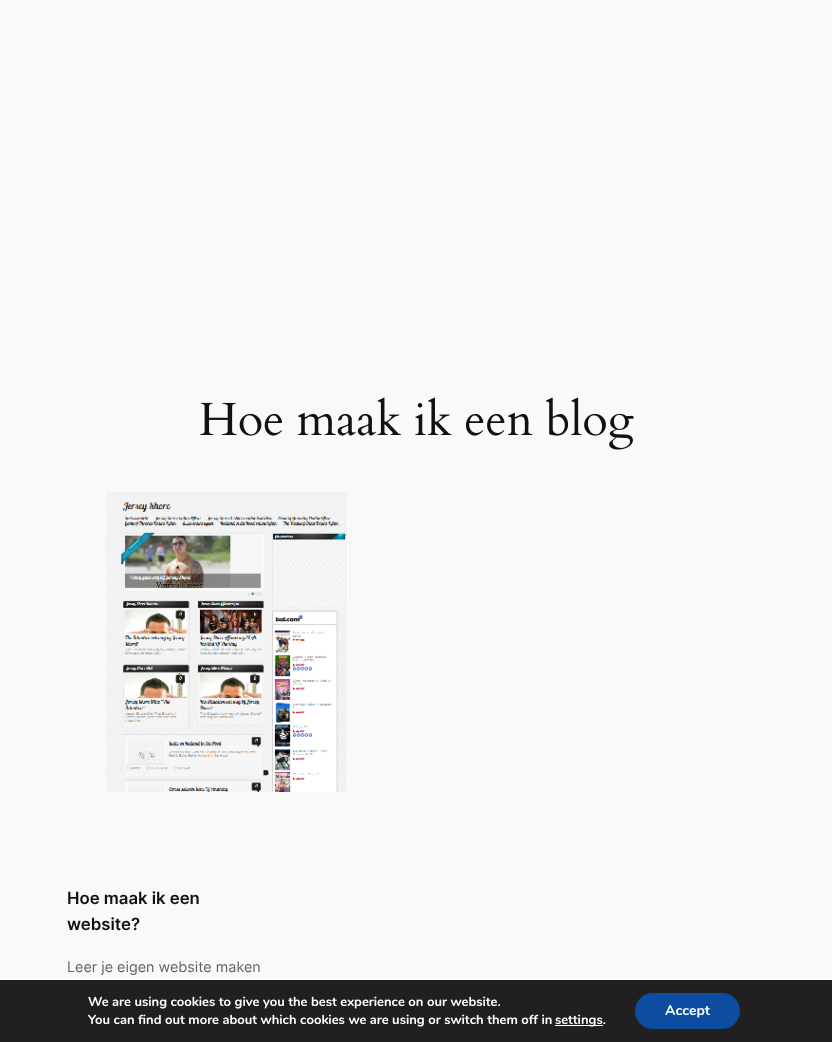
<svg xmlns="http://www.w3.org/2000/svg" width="832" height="1042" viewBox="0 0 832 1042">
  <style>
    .t1 { font: 600 16.75px Inter; fill: #111; }
    .t2 { font: 14.4px Inter; fill: #636363; }
    .t3 { font: bold 13px Nunito; fill: #fff; }
    .t4 { font: bold 14px Nunito; fill: #fff; }
  </style>
  <rect width="100%" height="100%" fill="#f9f9f9"/>
  <image x="200" y="397" width="434" height="53" href="images/1.png"/>
  <image x="106" y="492" width="242" height="300" href="images/2.png"/>
  <text x="67" y="904" class="t1">Hoe maak ik een</text>
  <text x="67" y="930" class="t1">website?</text>
  <text x="67" y="972" class="t2">Leer je eigen website maken</text>
  <rect x="0" y="980" width="832" height="62" fill="#202020"/>
  <rect x="0" y="979" width="832" height="1" fill="#fff"/>
  <text x="88" y="1006" class="t3">We are using cookies to give you the best experience on our website.</text>
  <text x="88" y="1024" class="t3">You can find out more about which cookies we are using or switch them off in</text>
  <rect x="555" y="1025" width="48" height="1" fill="#fff"/>
  <text x="555" y="1024" class="t3">settings.</text>
  <rect x="635" y="993" width="105" height="36" rx="18" fill="#0c4da2"/>
  <text x="665" y="1015" class="t4">Accept</text>
</svg>
